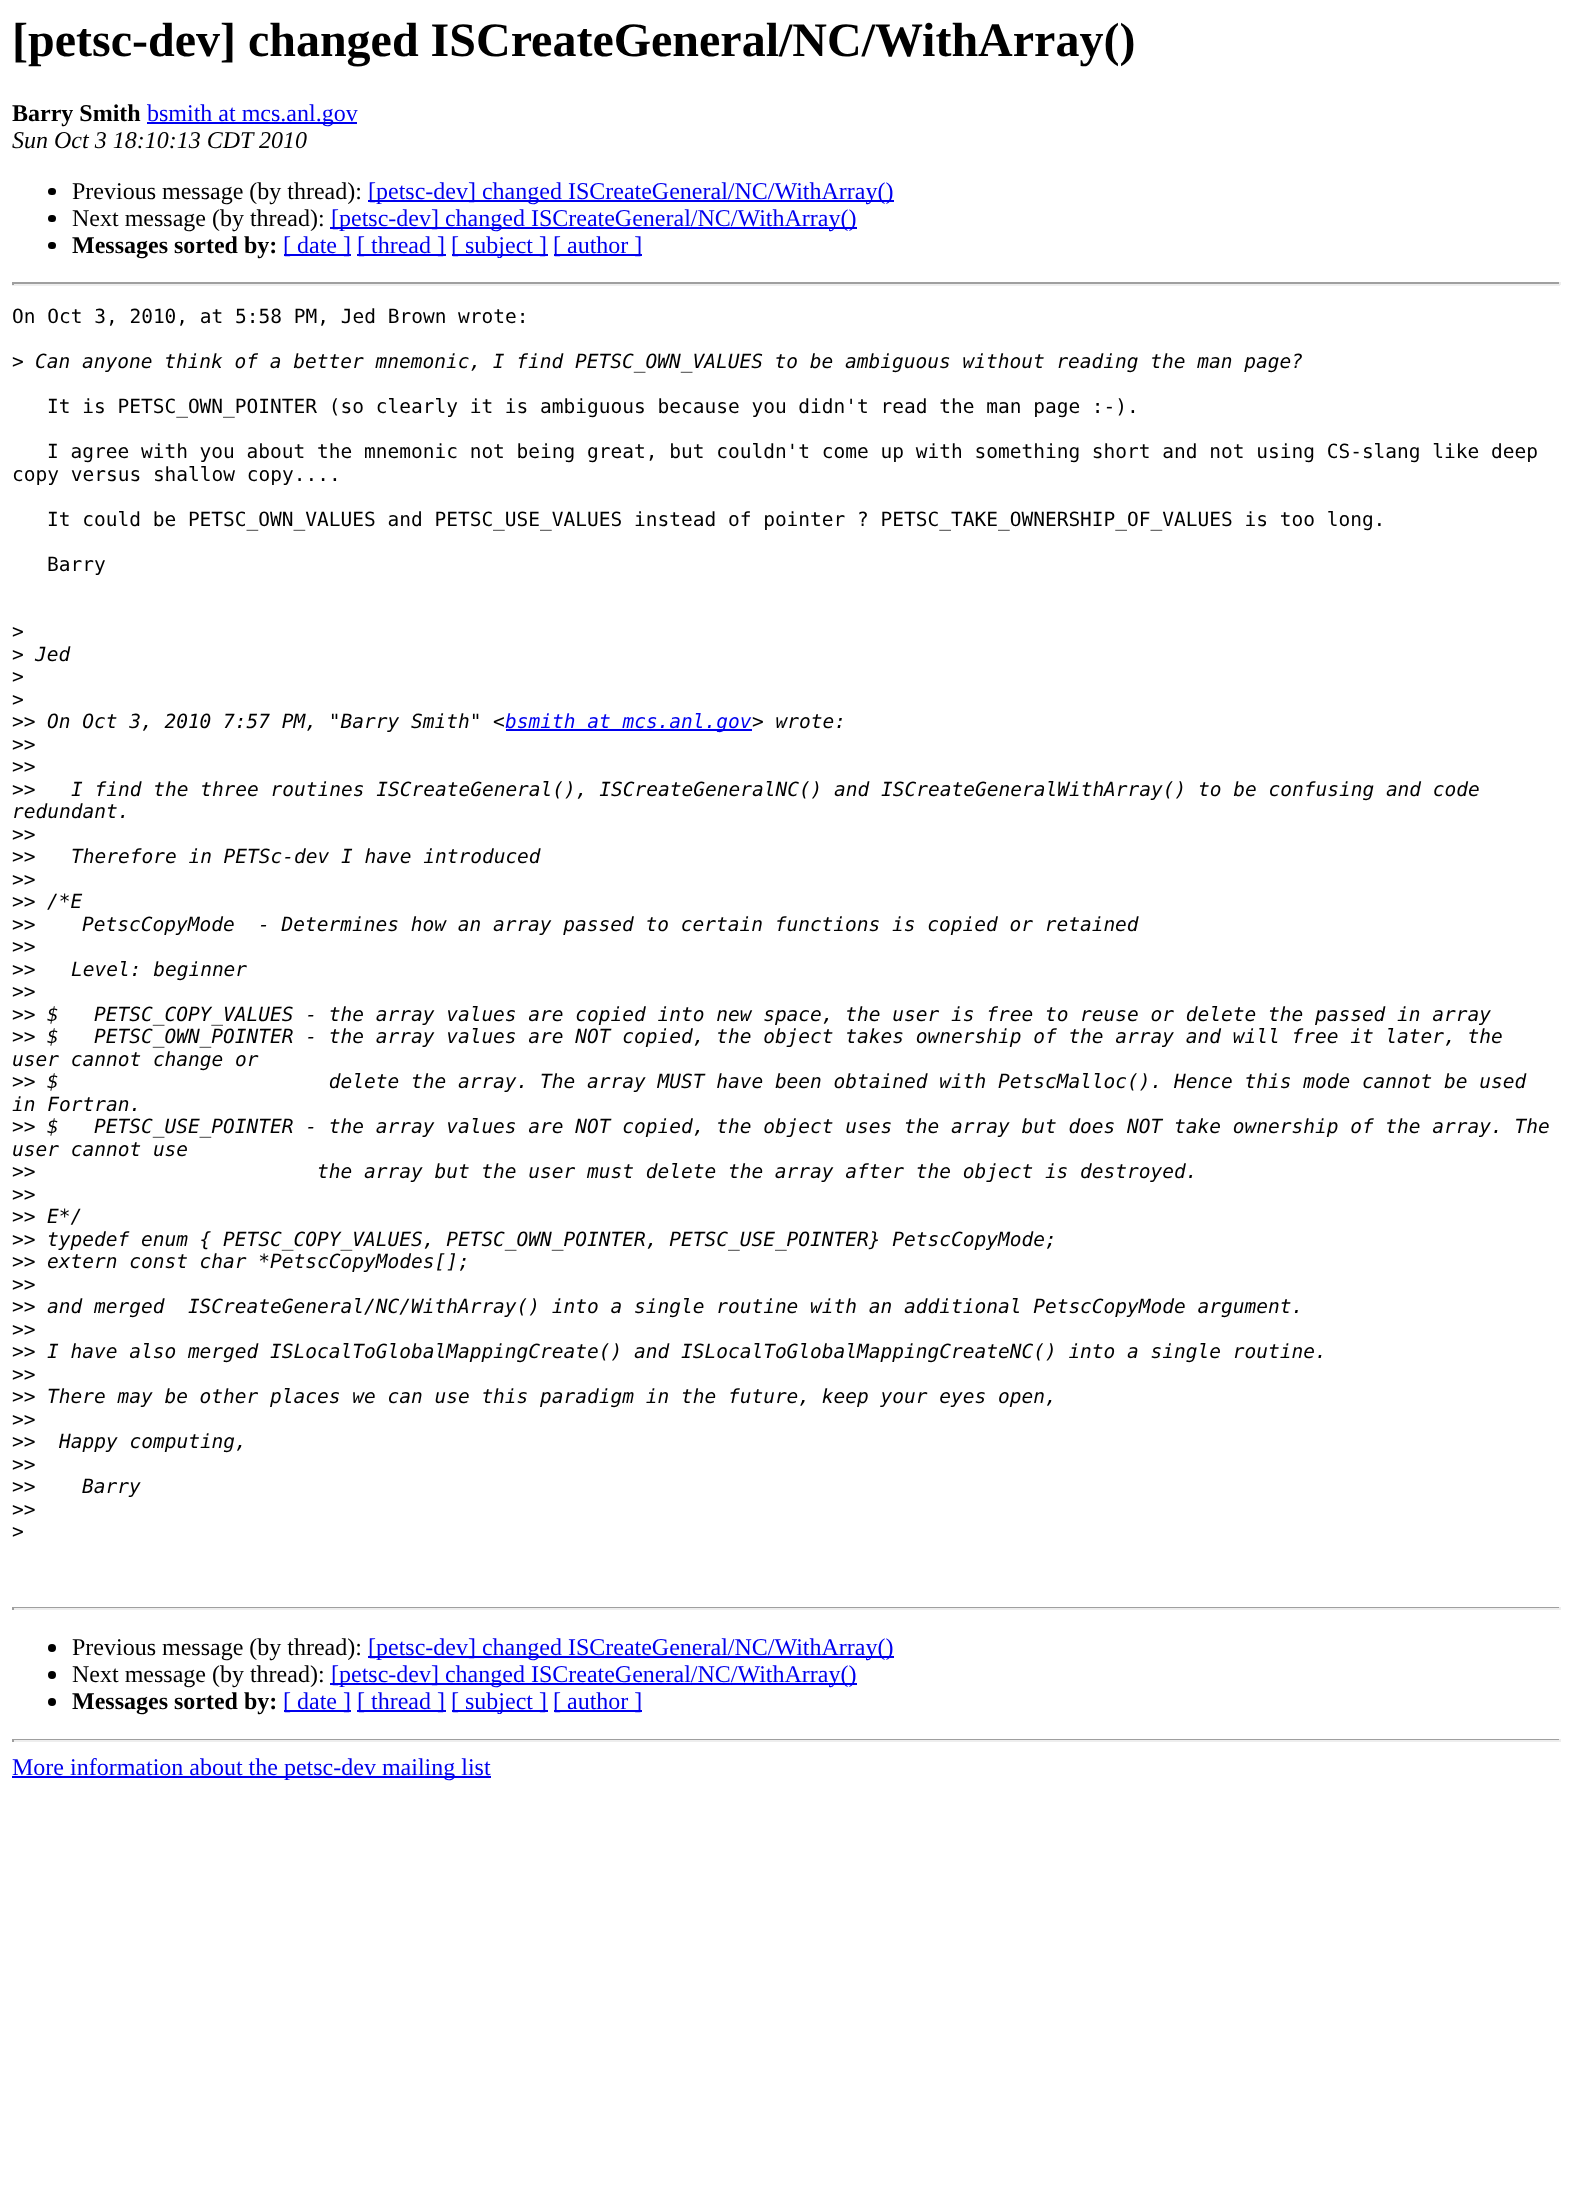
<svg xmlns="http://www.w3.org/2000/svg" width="1572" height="2212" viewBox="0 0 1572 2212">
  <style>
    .t1 { font: bold 48px Liberation Serif; fill: #000; }
    .t2 { font: bold 24px Liberation Serif; fill: #000; }
    .t3 { font: 24px Liberation Serif; fill: #00e; }
    .t4 { font: italic 24px Liberation Serif; fill: #000; }
    .t5 { font: 24px Liberation Serif; fill: #000; }
    .t6 { font: 19.5px DejaVu Sans Mono; fill: #000; }
    .t7 { font: italic 19.5px DejaVu Sans Mono; fill: #000; }
    .t8 { font: italic 19.5px DejaVu Sans Mono; fill: #00e; }
  </style>
  <rect width="100%" height="100%" fill="#fff"/>
  <text x="12" y="56" class="t1">[petsc-dev] changed ISCreateGeneral/NC/WithArray()</text>
  <text x="12" y="121" class="t2">Barry Smith</text>
  <rect x="147" y="122" width="210" height="2" fill="#00e"/>
  <text x="147" y="121" class="t3">bsmith at mcs.anl.gov</text>
  <text x="12" y="148" class="t4">Sun Oct 3 18:10:13 CDT 2010</text>
  <rect x="48" y="188" width="8" height="7" rx="3.5" fill="#000"/>
  <text x="72" y="199" class="t5">Previous message (by thread):</text>
  <rect x="368" y="200" width="526" height="2" fill="#00e"/>
  <text x="368" y="199" class="t3">[petsc-dev] changed ISCreateGeneral/NC/WithArray()</text>
  <rect x="48" y="215" width="8" height="7" rx="3.5" fill="#000"/>
  <text x="72" y="226" class="t5">Next message (by thread):</text>
  <rect x="330" y="227" width="527" height="2" fill="#00e"/>
  <text x="331" y="226" class="t3">[petsc-dev] changed ISCreateGeneral/NC/WithArray()</text>
  <rect x="48" y="242" width="8" height="7" rx="3.5" fill="#000"/>
  <text x="72" y="253" class="t2">Messages sorted by:</text>
  <rect x="284" y="254" width="67" height="2" fill="#00e"/>
  <text x="283" y="253" class="t3">[ date ]</text>
  <rect x="357" y="254" width="89" height="2" fill="#00e"/>
  <text x="357" y="253" class="t3">[ thread ]</text>
  <rect x="452" y="254" width="96" height="2" fill="#00e"/>
  <text x="451" y="253" class="t3">[ subject ]</text>
  <rect x="554" y="254" width="88" height="2" fill="#00e"/>
  <text x="553" y="253" class="t3">[ author ]</text>
  <rect x="12" y="282" width="1548" height="2" fill="#9f9f9f"/>
  <rect x="1559" y="282" width="2" height="3" fill="#eee"/>
  <rect x="12" y="284" width="1548" height="2" fill="#eee"/>
  <rect x="12" y="282" width="2" height="3" fill="#9f9f9f"/>
  <text x="12" y="323" class="t6">On Oct 3, 2010, at 5:58 PM, Jed Brown wrote:</text>
  <text x="12" y="368" class="t6">&gt;</text>
  <text x="35" y="368" class="t7">Can anyone think of a better mnemonic, I find PETSC_OWN_VALUES to be ambiguous without reading the man page?</text>
  <text x="47" y="413" class="t6">It is PETSC_OWN_POINTER (so clearly it is ambiguous because you didn't read the man page :-).</text>
  <text x="47" y="458" class="t6">I agree with you about the mnemonic not being great, but couldn't come up with something short and not using CS-slang like deep</text>
  <text x="12" y="481" class="t6">copy versus shallow copy....</text>
  <text x="47" y="526" class="t6">It could be PETSC_OWN_VALUES and PETSC_USE_VALUES instead of pointer ? PETSC_TAKE_OWNERSHIP_OF_VALUES is too long.</text>
  <text x="47" y="571" class="t6">Barry</text>
  <text x="12" y="638" class="t6">&gt;</text>
  <text x="12" y="661" class="t6">&gt;</text>
  <text x="35" y="661" class="t7">Jed</text>
  <text x="12" y="683" class="t6">&gt;</text>
  <text x="12" y="706" class="t6">&gt;</text>
  <text x="12" y="728" class="t6">&gt;&gt;</text>
  <text x="47" y="728" class="t7">On Oct 3, 2010 7:57 PM, "Barry Smith" &lt;</text>
  <rect x="506" y="729" width="246" height="2" fill="#00e"/>
  <text x="505" y="728" class="t8">bsmith at mcs.anl.gov</text>
  <text x="752" y="728" class="t7">&gt; wrote:</text>
  <text x="12" y="751" class="t6">&gt;&gt;</text>
  <text x="12" y="773" class="t6">&gt;&gt;</text>
  <text x="12" y="796" class="t6">&gt;&gt;</text>
  <text x="71" y="796" class="t7">I find the three routines ISCreateGeneral(), ISCreateGeneralNC() and ISCreateGeneralWithArray() to be confusing and code</text>
  <text x="12" y="818" class="t7">redundant.</text>
  <text x="12" y="841" class="t6">&gt;&gt;</text>
  <text x="12" y="863" class="t6">&gt;&gt;</text>
  <text x="71" y="863" class="t7">Therefore in PETSc-dev I have introduced</text>
  <text x="12" y="886" class="t6">&gt;&gt;</text>
  <text x="12" y="908" class="t6">&gt;&gt;</text>
  <text x="47" y="908" class="t7">/*E</text>
  <text x="12" y="931" class="t6">&gt;&gt;</text>
  <text x="82" y="931" class="t7" xml:space="preserve">PetscCopyMode  - Determines how an array passed to certain functions is copied or retained</text>
  <text x="12" y="953" class="t6">&gt;&gt;</text>
  <text x="12" y="976" class="t6">&gt;&gt;</text>
  <text x="71" y="976" class="t7">Level: beginner</text>
  <text x="12" y="998" class="t6">&gt;&gt;</text>
  <text x="12" y="1021" class="t6">&gt;&gt;</text>
  <text x="47" y="1021" class="t7" xml:space="preserve">$   PETSC_COPY_VALUES - the array values are copied into new space, the user is free to reuse or delete the passed in array</text>
  <text x="12" y="1043" class="t6">&gt;&gt;</text>
  <text x="47" y="1043" class="t7" xml:space="preserve">$   PETSC_OWN_POINTER - the array values are NOT copied, the object takes ownership of the array and will free it later, the</text>
  <text x="12" y="1066" class="t7">user cannot change or</text>
  <text x="12" y="1088" class="t6">&gt;&gt;</text>
  <text x="47" y="1088" class="t7" xml:space="preserve">$                       delete the array. The array MUST have been obtained with PetscMalloc(). Hence this mode cannot be used</text>
  <text x="12" y="1111" class="t7">in Fortran.</text>
  <text x="12" y="1133" class="t6">&gt;&gt;</text>
  <text x="47" y="1133" class="t7" xml:space="preserve">$   PETSC_USE_POINTER - the array values are NOT copied, the object uses the array but does NOT take ownership of the array. The</text>
  <text x="12" y="1156" class="t7">user cannot use</text>
  <text x="12" y="1178" class="t6">&gt;&gt;</text>
  <text x="317" y="1178" class="t7">the array but the user must delete the array after the object is destroyed.</text>
  <text x="12" y="1201" class="t6">&gt;&gt;</text>
  <text x="12" y="1223" class="t6">&gt;&gt;</text>
  <text x="47" y="1223" class="t7">E*/</text>
  <text x="12" y="1246" class="t6">&gt;&gt;</text>
  <text x="47" y="1246" class="t7">typedef enum { PETSC_COPY_VALUES, PETSC_OWN_POINTER, PETSC_USE_POINTER} PetscCopyMode;</text>
  <text x="12" y="1268" class="t6">&gt;&gt;</text>
  <text x="47" y="1268" class="t7">extern const char *PetscCopyModes[];</text>
  <text x="12" y="1291" class="t6">&gt;&gt;</text>
  <text x="12" y="1313" class="t6">&gt;&gt;</text>
  <text x="47" y="1313" class="t7" xml:space="preserve">and merged  ISCreateGeneral/NC/WithArray() into a single routine with an additional PetscCopyMode argument.</text>
  <text x="12" y="1336" class="t6">&gt;&gt;</text>
  <text x="12" y="1358" class="t6">&gt;&gt;</text>
  <text x="47" y="1358" class="t7">I have also merged ISLocalToGlobalMappingCreate() and ISLocalToGlobalMappingCreateNC() into a single routine.</text>
  <text x="12" y="1381" class="t6">&gt;&gt;</text>
  <text x="12" y="1403" class="t6">&gt;&gt;</text>
  <text x="47" y="1403" class="t7">There may be other places we can use this paradigm in the future, keep your eyes open,</text>
  <text x="12" y="1426" class="t6">&gt;&gt;</text>
  <text x="12" y="1448" class="t6">&gt;&gt;</text>
  <text x="59" y="1448" class="t7">Happy computing,</text>
  <text x="12" y="1471" class="t6">&gt;&gt;</text>
  <text x="12" y="1493" class="t6">&gt;&gt;</text>
  <text x="82" y="1493" class="t7">Barry</text>
  <text x="12" y="1516" class="t6">&gt;&gt;</text>
  <text x="12" y="1538" class="t6">&gt;</text>
  <rect x="12" y="1607" width="1548" height="1" fill="#9f9f9f"/>
  <rect x="1559" y="1607" width="2" height="3" fill="#eee"/>
  <rect x="12" y="1608" width="1548" height="2" fill="#eee"/>
  <rect x="12" y="1607" width="2" height="3" fill="#9f9f9f"/>
  <circle cx="52" cy="1648" r="4" fill="#000"/>
  <text x="72" y="1655" class="t5">Previous message (by thread):</text>
  <rect x="368" y="1656" width="526" height="2" fill="#00e"/>
  <text x="368" y="1655" class="t3">[petsc-dev] changed ISCreateGeneral/NC/WithArray()</text>
  <circle cx="52" cy="1675" r="4" fill="#000"/>
  <text x="72" y="1682" class="t5">Next message (by thread):</text>
  <rect x="330" y="1683" width="527" height="2" fill="#00e"/>
  <text x="331" y="1682" class="t3">[petsc-dev] changed ISCreateGeneral/NC/WithArray()</text>
  <circle cx="52" cy="1702" r="4" fill="#000"/>
  <text x="72" y="1709" class="t2">Messages sorted by:</text>
  <rect x="284" y="1710" width="67" height="2" fill="#00e"/>
  <text x="283" y="1709" class="t3">[ date ]</text>
  <rect x="357" y="1710" width="89" height="2" fill="#00e"/>
  <text x="357" y="1709" class="t3">[ thread ]</text>
  <rect x="452" y="1710" width="96" height="2" fill="#00e"/>
  <text x="451" y="1709" class="t3">[ subject ]</text>
  <rect x="554" y="1710" width="88" height="2" fill="#00e"/>
  <text x="553" y="1709" class="t3">[ author ]</text>
  <rect x="12" y="1739" width="1548" height="1" fill="#9f9f9f"/>
  <rect x="1559" y="1739" width="2" height="3" fill="#eee"/>
  <rect x="12" y="1740" width="1548" height="2" fill="#eee"/>
  <rect x="12" y="1739" width="2" height="3" fill="#9f9f9f"/>
  <rect x="12" y="1776" width="479" height="2" fill="#00e"/>
  <text x="12" y="1775" class="t3">More information about the petsc-dev mailing list</text>
</svg>
